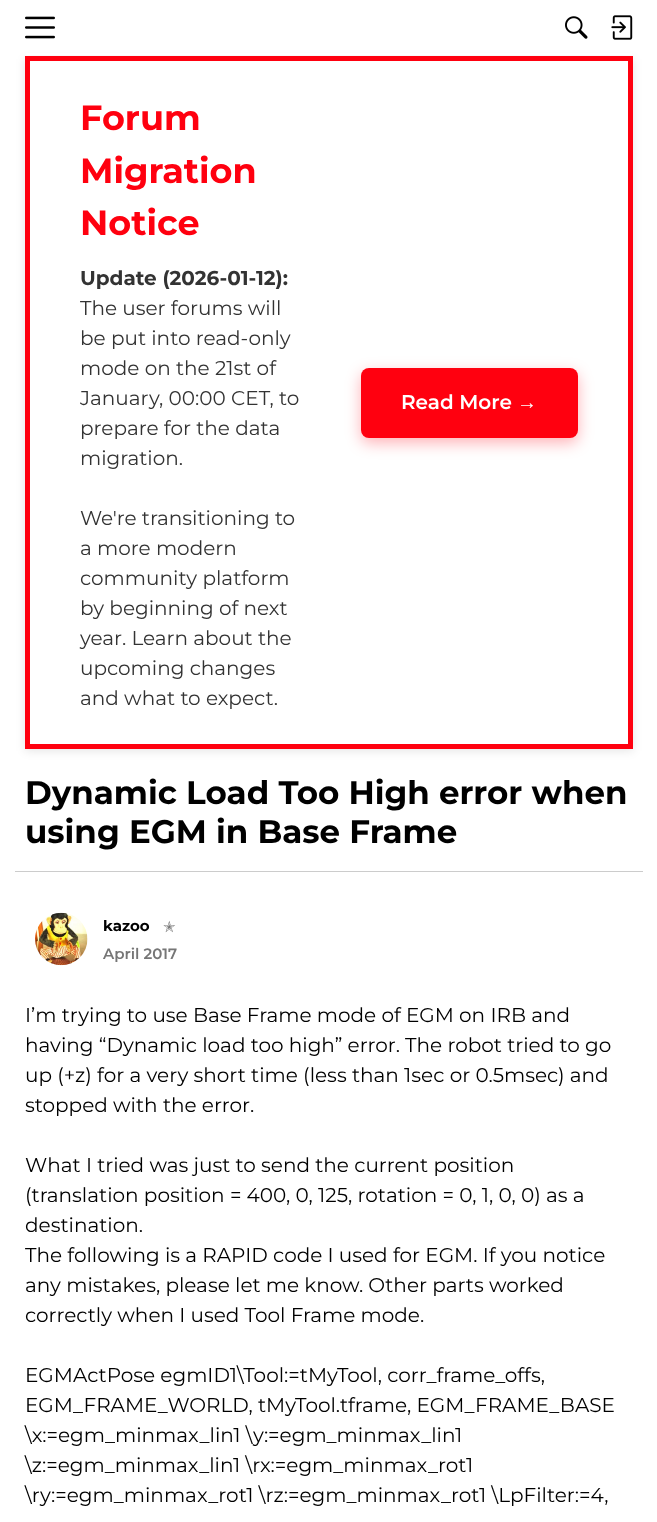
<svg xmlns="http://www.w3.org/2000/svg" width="657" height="1522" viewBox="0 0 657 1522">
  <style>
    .t1 { font: bold 35px Montserrat; fill: #ff000f; }
    .t2 { font: bold 20px Montserrat; fill: #333; }
    .t3 { font: 20px Montserrat; fill: #333; }
    .t4 { font: 600 20px Montserrat; fill: #fff; }
    .t5 { font: bold 20px Liberation Sans; fill: #fff; }
    .t6 { font: bold 32.5px Montserrat; fill: #000; }
    .t7 { font: bold 15px Montserrat; fill: #000; }
    .t8 { font: 15px DejaVu Sans; fill: #767676; }
    .t9 { font: 600 15px Montserrat; fill: #767676; }
    .t10 { font: 20px Montserrat; fill: #000; }
  </style>
  <rect width="100%" height="100%" fill="#fff"/>
  <image x="25" y="16" width="30" height="23" href="images/1.png"/>
  <image x="565" y="16" width="23" height="23" href="images/2.png"/>
  <image x="611" y="15" width="22" height="25" href="images/3.png"/>
  <rect x="25" y="59" width="608" height="692" fill="#0000001a" filter="blur(5px)"/>
  <rect x="26" y="53" width="606" height="2" fill="#fff"/>
  <rect x="27.5" y="58.5" width="603" height="688" fill="#fff" stroke="#ff000f" stroke-width="5"/>
  <text x="80" y="130" class="t1">Forum</text>
  <text x="80" y="183" class="t1">Migration</text>
  <text x="80" y="235" class="t1">Notice</text>
  <text x="80" y="285" class="t2">Update (2026-01-12):</text>
  <text x="80" y="315" class="t3">The user forums will</text>
  <text x="80" y="345" class="t3">be put into read-only</text>
  <text x="80" y="375" class="t3">mode on the 21st of</text>
  <text x="80" y="405" class="t3">January, 00:00 CET, to</text>
  <text x="80" y="435" class="t3">prepare for the data</text>
  <text x="80" y="465" class="t3">migration.</text>
  <text x="80" y="525" class="t3">We're transitioning to</text>
  <text x="80" y="555" class="t3">a more modern</text>
  <text x="80" y="585" class="t3">community platform</text>
  <text x="80" y="615" class="t3">by beginning of next</text>
  <text x="80" y="645" class="t3">year. Learn about the</text>
  <text x="80" y="675" class="t3">upcoming changes</text>
  <text x="80" y="705" class="t3">and what to expect.</text>
  <rect x="361" y="373" width="217" height="70" rx="8" fill="#ff000f4d" filter="blur(7.5px)"/>
  <rect x="361" y="368" width="217" height="70" rx="8" fill="#ff000f"/>
  <text x="401" y="409" class="t4">Read More</text>
  <text x="517" y="409" class="t5">→</text>
  <text x="25" y="804" class="t6">Dynamic Load Too High error when</text>
  <text x="25" y="843" class="t6">using EGM in Base Frame</text>
  <rect x="15" y="871" width="628" height="1" fill="#ccc"/>
  <image x="35" y="912" width="53" height="54" href="images/4.png"/>
  <text x="103" y="931" class="t7">kazoo</text>
  <text x="163" y="932" class="t8">✭</text>
  <text x="103" y="959" class="t9">April 2017</text>
  <text x="25" y="1022" class="t10">I’m trying to use Base Frame mode of EGM on IRB and</text>
  <text x="25" y="1052" class="t10">having “Dynamic load too high” error. The robot tried to go</text>
  <text x="25" y="1082" class="t10">up (+z) for a very short time (less than 1sec or 0.5msec) and</text>
  <text x="25" y="1112" class="t10">stopped with the error.</text>
  <text x="25" y="1172" class="t10">What I tried was just to send the current position</text>
  <text x="25" y="1202" class="t10">(translation position = 400, 0, 125, rotation = 0, 1, 0, 0) as a</text>
  <text x="25" y="1232" class="t10">destination.</text>
  <text x="25" y="1262" class="t10">The following is a RAPID code I used for EGM. If you notice</text>
  <text x="25" y="1292" class="t10">any mistakes, please let me know. Other parts worked</text>
  <text x="25" y="1322" class="t10">correctly when I used Tool Frame mode.</text>
  <text x="25" y="1382" class="t10">EGMActPose egmID1\Tool:=tMyTool, corr_frame_offs,</text>
  <text x="25" y="1412" class="t10">EGM_FRAME_WORLD, tMyTool.tframe, EGM_FRAME_BASE</text>
  <text x="25" y="1442" class="t10">\x:=egm_minmax_lin1 \y:=egm_minmax_lin1</text>
  <text x="25" y="1472" class="t10">\z:=egm_minmax_lin1 \rx:=egm_minmax_rot1</text>
  <text x="25" y="1502" class="t10">\ry:=egm_minmax_rot1 \rz:=egm_minmax_rot1 \LpFilter:=4,</text>
</svg>
